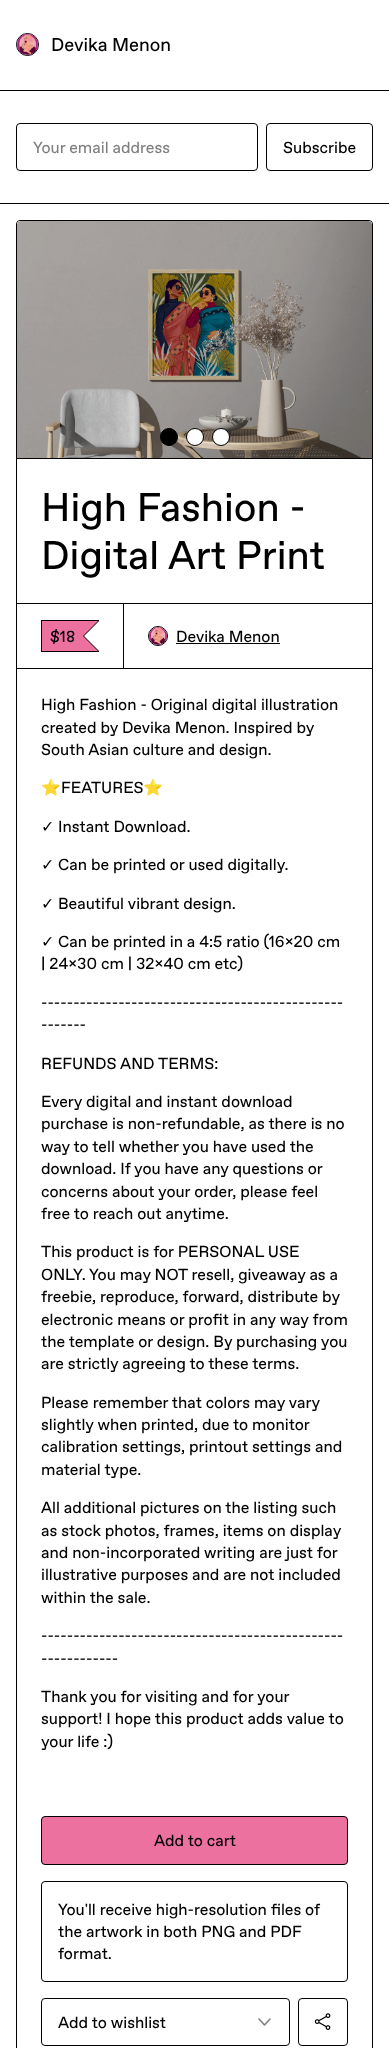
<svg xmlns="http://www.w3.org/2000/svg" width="389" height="2048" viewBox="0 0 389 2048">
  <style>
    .t1 { font: 18.5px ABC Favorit; fill: #000; }
    .t2 { font: 16px ABC Favorit; fill: #808080; }
    .t3 { font: 16px ABC Favorit; fill: #000; }
    .t4 { font: 40px ABC Favorit; fill: #000; }
    .t5 { font: 16px Noto Color Emoji; fill: #000; }
    .t6 { font: 16px DejaVu Sans; fill: #000; }
  </style>
  <rect width="100%" height="100%" fill="#fff"/>
  <rect x="0" y="90" width="389" height="1" fill="#000"/>
  <circle cx="27.5" cy="44.5" r="11" fill="none" stroke="#000"/>
  <image x="17" y="34" width="21" height="21" href="images/1.png"/>
  <text x="51" y="51" class="t1">Devika Menon</text>
  <rect x="0" y="203" width="389" height="1" fill="#000"/>
  <rect x="16.5" y="123.5" width="241" height="47" rx="3.5" fill="none" stroke="#000"/>
  <text x="33" y="153" class="t2">Your email address</text>
  <rect x="266.5" y="123.5" width="106" height="47" rx="3.5" fill="none" stroke="#000"/>
  <text x="283" y="153" class="t3">Subscribe</text>
  <rect x="16.5" y="220.5" width="356" height="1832" rx="3.5" fill="none" stroke="#000"/>
  <image x="17" y="221" width="355" height="4" href="images/2.png"/>
  <rect x="17" y="458" width="355" height="1" fill="#000"/>
  <image x="17" y="221" width="355" height="237" href="images/3.png"/>
  <circle cx="169" cy="437" r="8.5" fill="#000" stroke="#000"/>
  <circle cx="195" cy="437" r="8.5" fill="#fff" stroke="#000"/>
  <circle cx="221" cy="437" r="8.5" fill="#fff" stroke="#000"/>
  <text x="41" y="521" class="t4">High Fashion -</text>
  <text x="41" y="569" class="t4">Digital Art Print</text>
  <rect x="124" y="603" width="248" height="1" fill="#000"/>
  <rect x="16.5" y="603.5" width="107" height="65" fill="none" stroke="#000"/>
  <rect x="41" y="620" width="58" height="1" fill="#000"/>
  <rect x="41" y="651" width="58" height="1" fill="#000"/>
  <rect x="41" y="620" width="1" height="32" fill="#000"/>
  <rect x="42" y="621" width="41" height="30" fill="#ed719e"/>
  <path d="M83 621H99L84 636ZM99 651H83L84 636Z" fill="#000"/>
  <rect x="83" y="635" width="1" height="2" fill="#000"/>
  <path d="M82 621H98L83 636ZM98 651H82L83 636Z" fill="#ed719e"/>
  <text x="50" y="642" class="t3">$18</text>
  <circle cx="158" cy="636" r="9.5" fill="none" stroke="#000"/>
  <image x="149" y="627" width="18" height="18" href="images/4.png"/>
  <text x="176" y="642" class="t3">Devika Menon</text>
  <rect x="176" y="643" width="104" height="1" fill="#000"/>
  <rect x="124" y="668" width="248" height="1" fill="#000"/>
  <text x="41" y="710" class="t3">High Fashion - Original digital illustration</text>
  <text x="41" y="733" class="t3">created by Devika Menon. Inspired by</text>
  <text x="41" y="755" class="t3">South Asian culture and design.</text>
  <text x="41" y="793" class="t5">⭐️</text>
  <text x="61" y="793" class="t3">FEATURES</text>
  <text x="143" y="793" class="t5">⭐️</text>
  <text x="41" y="832" class="t6">✓</text>
  <text x="58" y="832" class="t3">Instant Download.</text>
  <text x="41" y="870" class="t6">✓</text>
  <text x="58" y="870" class="t3">Can be printed or used digitally.</text>
  <text x="41" y="909" class="t6">✓</text>
  <text x="58" y="909" class="t3">Beautiful vibrant design.</text>
  <text x="41" y="947" class="t6">✓</text>
  <text x="58" y="947" class="t3">Can be printed in a 4:5 ratio (16x20 cm</text>
  <text x="41" y="969" class="t3">| 24x30 cm | 32x40 cm etc)</text>
  <text x="41" y="1008" class="t3">-----------------------------------------------</text>
  <text x="41" y="1030" class="t3">-------</text>
  <text x="41" y="1069" class="t3">REFUNDS AND TERMS:</text>
  <text x="41" y="1107" class="t3">Every digital and instant download</text>
  <text x="41" y="1129" class="t3">purchase is non-refundable, as there is no</text>
  <text x="41" y="1152" class="t3">way to tell whether you have used the</text>
  <text x="41" y="1174" class="t3">download. If you have any questions or</text>
  <text x="41" y="1197" class="t3">concerns about your order, please feel</text>
  <text x="41" y="1219" class="t3">free to reach out anytime.</text>
  <text x="41" y="1257" class="t3">This product is for PERSONAL USE</text>
  <text x="41" y="1280" class="t3">ONLY. You may NOT resell, giveaway as a</text>
  <text x="41" y="1302" class="t3">freebie, reproduce, forward, distribute by</text>
  <text x="41" y="1325" class="t3">electronic means or profit in any way from</text>
  <text x="41" y="1347" class="t3">the template or design. By purchasing you</text>
  <text x="41" y="1369" class="t3">are strictly agreeing to these terms.</text>
  <text x="41" y="1408" class="t3">Please remember that colors may vary</text>
  <text x="41" y="1430" class="t3">slightly when printed, due to monitor</text>
  <text x="41" y="1452" class="t3">calibration settings, printout settings and</text>
  <text x="41" y="1475" class="t3">material type.</text>
  <text x="41" y="1513" class="t3">All additional pictures on the listing such</text>
  <text x="41" y="1536" class="t3">as stock photos, frames, items on display</text>
  <text x="41" y="1558" class="t3">and non-incorporated writing are just for</text>
  <text x="41" y="1580" class="t3">illustrative purposes and are not included</text>
  <text x="41" y="1603" class="t3">within the sale.</text>
  <text x="41" y="1641" class="t3">-----------------------------------------------</text>
  <text x="41" y="1664" class="t3">------------</text>
  <text x="41" y="1702" class="t3">Thank you for visiting and for your</text>
  <text x="41" y="1724" class="t3">support! I hope this product adds value to</text>
  <text x="41" y="1747" class="t3">your life :)</text>
  <rect x="41.5" y="1816.5" width="306" height="48" rx="3.5" fill="#ed719e" stroke="#000"/>
  <text x="154" y="1846" class="t3">Add to cart</text>
  <rect x="41.5" y="1881.5" width="306" height="100" rx="3.5" fill="none" stroke="#000"/>
  <text x="58" y="1915" class="t3">You'll receive high-resolution files of</text>
  <text x="58" y="1937" class="t3">the artwork in both PNG and PDF</text>
  <text x="58" y="1959" class="t3">format.</text>
  <rect x="41.5" y="1998.5" width="248" height="47" rx="3.5" fill="none" stroke="#000"/>
  <text x="58" y="2028" class="t3">Add to wishlist</text>
  <path d="M270 2019L264.5 2025L259 2019" fill="none" stroke="#808080" stroke-width="1.6" stroke-linecap="round" stroke-linejoin="round"/>
  <rect x="298.5" y="1998.5" width="49" height="47" rx="3.5" fill="none" stroke="#000"/>
  <image x="314" y="2013" width="17" height="17" href="images/5.png"/>
</svg>
